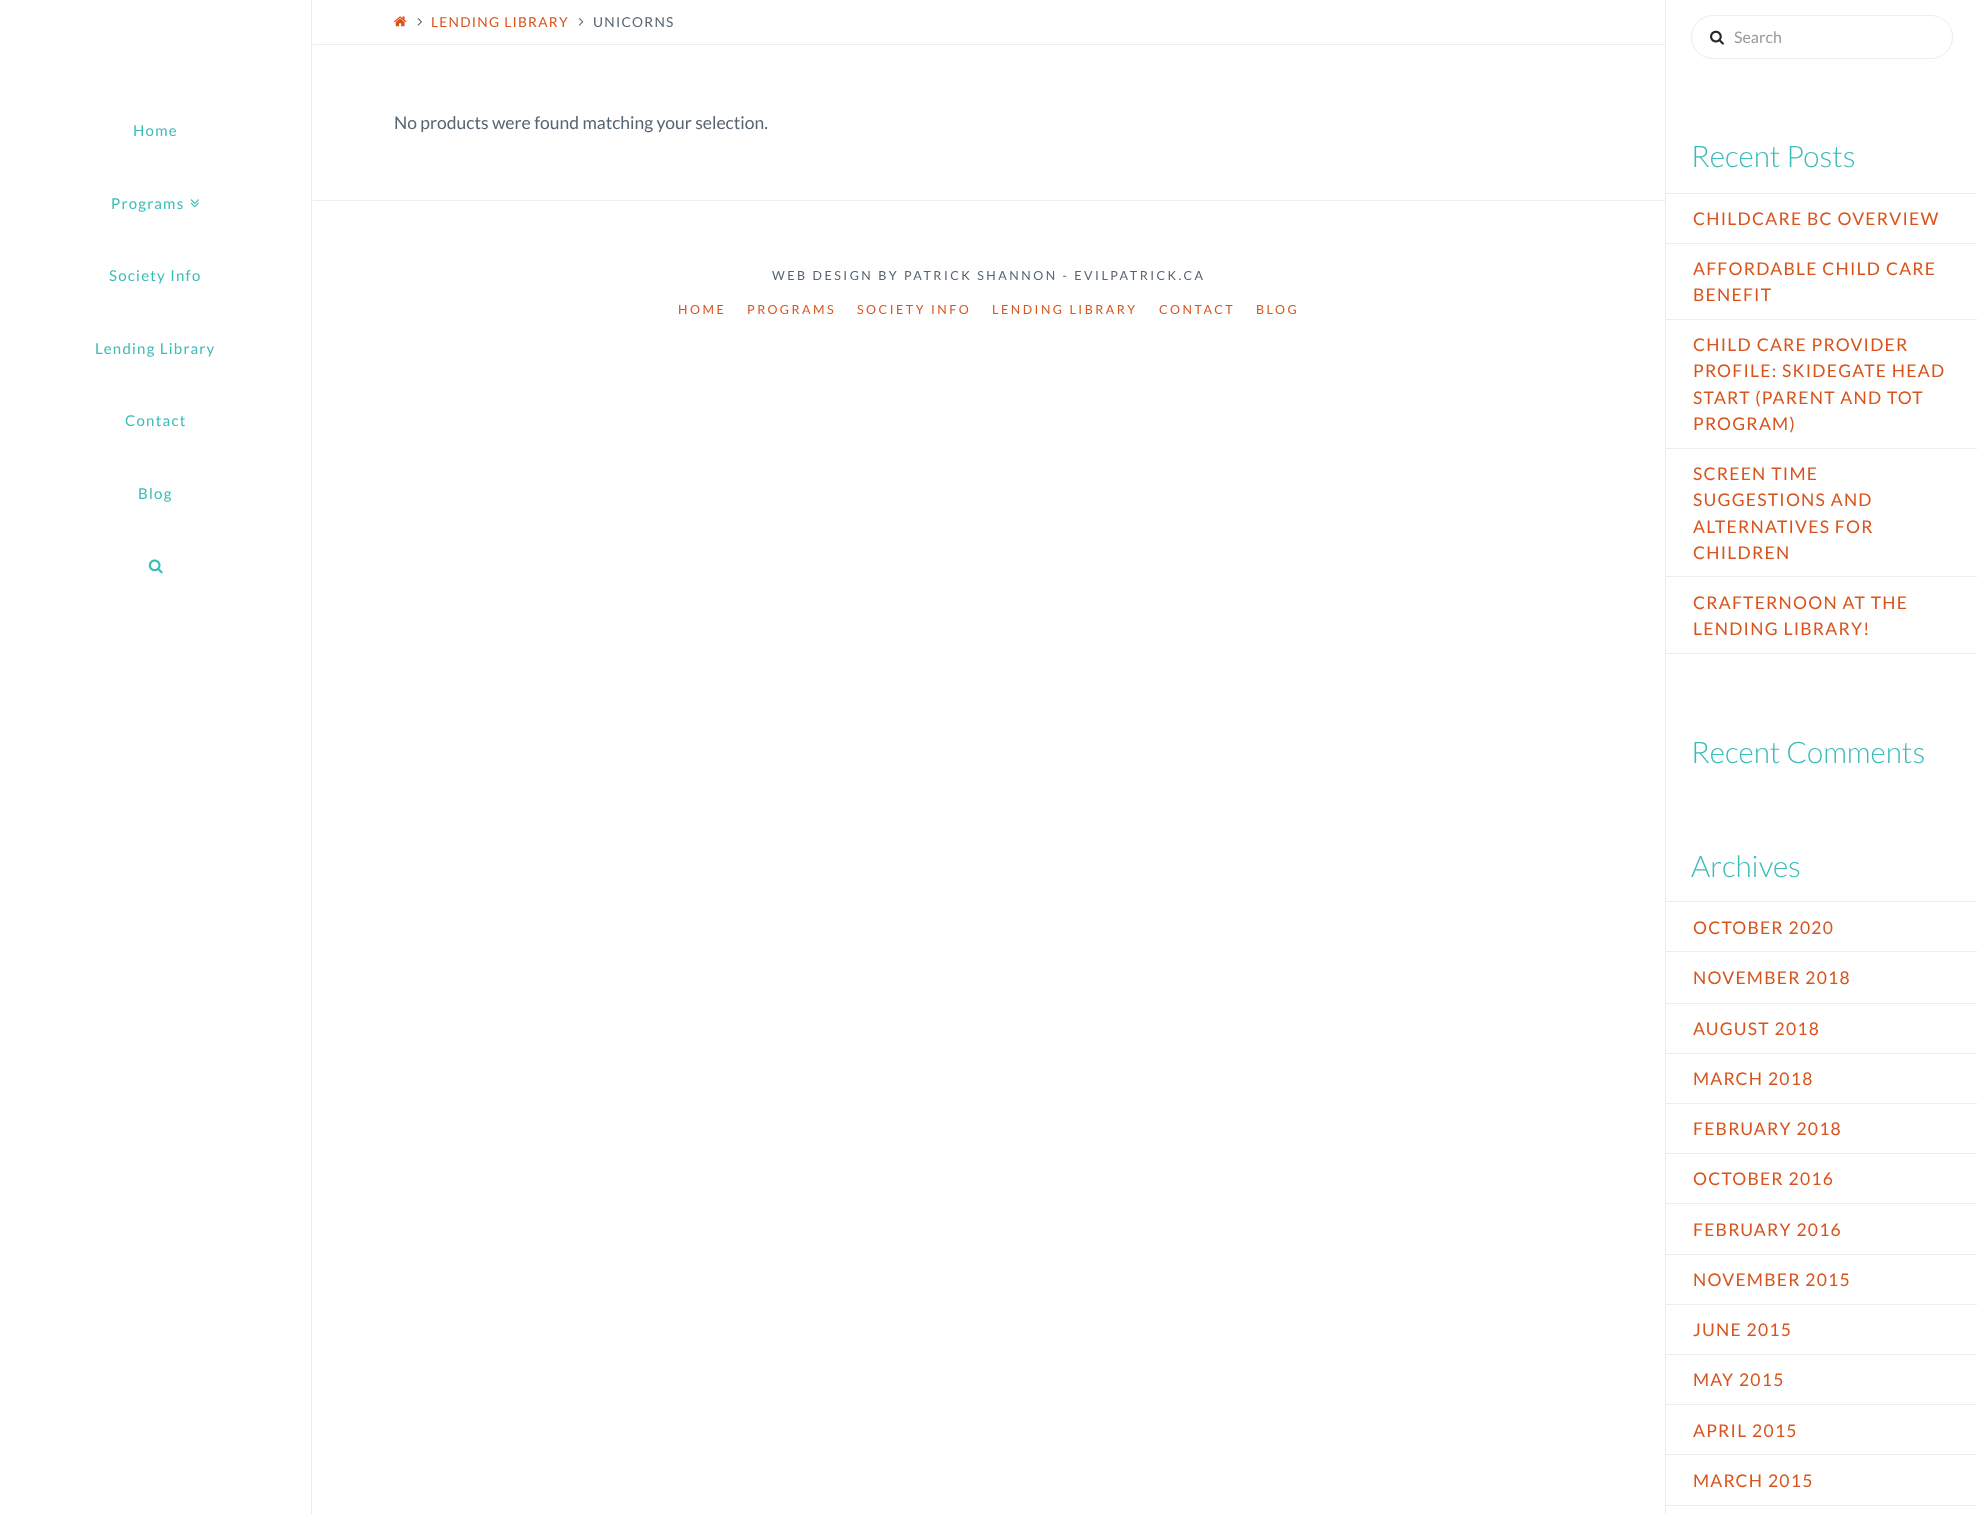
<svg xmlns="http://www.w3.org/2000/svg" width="1977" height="1514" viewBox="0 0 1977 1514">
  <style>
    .t1 { font: 13.75px Lato; letter-spacing: 1.25px; fill: #d8541c; }
    .t2 { font: 13.75px Lato; letter-spacing: 1.25px; fill: #566471; }
    .t3 { font: 15px Lato; letter-spacing: 1.25px; fill: #3abcb8; }
    .t4 { font: 16px Lato; fill: #999; }
    .t5 { font: 300 29.75px Lato; fill: #3abcb8; }
    .t6 { font: 17.5px Lato; letter-spacing: 1.25px; fill: #d8541c; }
    .t7 { font: 17.5px Lato; fill: #566471; }
    .t8 { font: 12.5px Lato; letter-spacing: 2.5px; fill: #566471; }
    .t9 { font: 12.5px Lato; letter-spacing: 2.5px; fill: #d8541c; }
  </style>
  <rect width="100%" height="100%" fill="#fff"/>
  <rect x="313" y="44" width="1352" height="1" fill="#ececec"/>
  <image x="394" y="16" width="13" height="11" href="images/1.png"/>
  <image x="417" y="18" width="5" height="8" href="images/2.png"/>
  <text x="431" y="27" class="t1">LENDING LIBRARY</text>
  <image x="578" y="18" width="6" height="8" href="images/3.png"/>
  <text x="593" y="27" class="t2">UNICORNS</text>
  <path d="M312 0V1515L311 1514V0Z" fill="#ececec"/>
  <text x="133" y="136" class="t3">Home</text>
  <text x="111" y="209" class="t3">Programs</text>
  <image x="190" y="199" width="9" height="9" href="images/4.png"/>
  <text x="109" y="281" class="t3">Society Info</text>
  <text x="95" y="354" class="t3">Lending Library</text>
  <text x="125" y="426" class="t3">Contact</text>
  <text x="138" y="499" class="t3">Blog</text>
  <image x="148" y="559" width="15" height="15" href="images/5.png"/>
  <rect x="1665" y="0" width="1" height="1514" fill="#ececec"/>
  <rect x="1691.5" y="15.5" width="261" height="43" rx="21.5" fill="none" stroke="#ececec"/>
  <image x="1710" y="30" width="14" height="15" href="images/6.png"/>
  <text x="1734" y="43" class="t4">Search</text>
  <text x="1691" y="167" class="t5">Recent Posts</text>
  <rect x="1666" y="193" width="311" height="1" fill="#ececec"/>
  <rect x="1666" y="243" width="311" height="1" fill="#ececec"/>
  <text x="1693" y="225" class="t6">CHILDCARE BC OVERVIEW</text>
  <rect x="1666" y="319" width="311" height="1" fill="#ececec"/>
  <text x="1693" y="275" class="t6">AFFORDABLE CHILD CARE</text>
  <text x="1693" y="301" class="t6">BENEFIT</text>
  <rect x="1666" y="448" width="311" height="1" fill="#ececec"/>
  <text x="1693" y="351" class="t6">CHILD CARE PROVIDER</text>
  <text x="1693" y="377" class="t6">PROFILE: SKIDEGATE HEAD</text>
  <text x="1693" y="404" class="t6">START (PARENT AND TOT</text>
  <text x="1693" y="430" class="t6">PROGRAM)</text>
  <rect x="1666" y="576" width="311" height="1" fill="#ececec"/>
  <text x="1693" y="480" class="t6">SCREEN TIME</text>
  <text x="1693" y="506" class="t6">SUGGESTIONS AND</text>
  <text x="1693" y="533" class="t6">ALTERNATIVES FOR</text>
  <text x="1693" y="559" class="t6">CHILDREN</text>
  <rect x="1666" y="653" width="311" height="1" fill="#ececec"/>
  <text x="1693" y="609" class="t6">CRAFTERNOON AT THE</text>
  <text x="1693" y="635" class="t6">LENDING LIBRARY!</text>
  <text x="1691" y="763" class="t5">Recent Comments</text>
  <text x="1691" y="877" class="t5">Archives</text>
  <rect x="1666" y="901" width="311" height="1" fill="#ececec"/>
  <rect x="1666" y="951" width="311" height="1" fill="#ececec"/>
  <text x="1693" y="934" class="t6">OCTOBER 2020</text>
  <rect x="1666" y="1003" width="311" height="1" fill="#ececec"/>
  <text x="1693" y="984" class="t6">NOVEMBER 2018</text>
  <rect x="1666" y="1053" width="311" height="1" fill="#ececec"/>
  <text x="1693" y="1035" class="t6">AUGUST 2018</text>
  <rect x="1666" y="1103" width="311" height="1" fill="#ececec"/>
  <text x="1693" y="1085" class="t6">MARCH 2018</text>
  <rect x="1666" y="1153" width="311" height="1" fill="#ececec"/>
  <text x="1693" y="1135" class="t6">FEBRUARY 2018</text>
  <rect x="1666" y="1203" width="311" height="1" fill="#ececec"/>
  <text x="1693" y="1185" class="t6">OCTOBER 2016</text>
  <rect x="1666" y="1254" width="311" height="1" fill="#ececec"/>
  <text x="1693" y="1236" class="t6">FEBRUARY 2016</text>
  <rect x="1666" y="1304" width="311" height="1" fill="#ececec"/>
  <text x="1693" y="1286" class="t6">NOVEMBER 2015</text>
  <rect x="1666" y="1354" width="311" height="1" fill="#ececec"/>
  <text x="1693" y="1336" class="t6">JUNE 2015</text>
  <rect x="1666" y="1404" width="311" height="1" fill="#ececec"/>
  <text x="1693" y="1386" class="t6">MAY 2015</text>
  <rect x="1666" y="1454" width="311" height="1" fill="#ececec"/>
  <text x="1693" y="1437" class="t6">APRIL 2015</text>
  <rect x="1666" y="1505" width="311" height="1" fill="#ececec"/>
  <text x="1693" y="1487" class="t6">MARCH 2015</text>
  <text x="394" y="129" class="t7">No products were found matching your selection.</text>
  <rect x="313" y="200" width="1352" height="1" fill="#ececec"/>
  <text x="772" y="280" class="t8">WEB DESIGN BY PATRICK SHANNON - EVILPATRICK.CA</text>
  <text x="678" y="314" class="t9">HOME</text>
  <text x="747" y="314" class="t9">PROGRAMS</text>
  <text x="857" y="314" class="t9">SOCIETY INFO</text>
  <text x="992" y="314" class="t9">LENDING LIBRARY</text>
  <text x="1159" y="314" class="t9">CONTACT</text>
  <text x="1256" y="314" class="t9">BLOG</text>
</svg>
